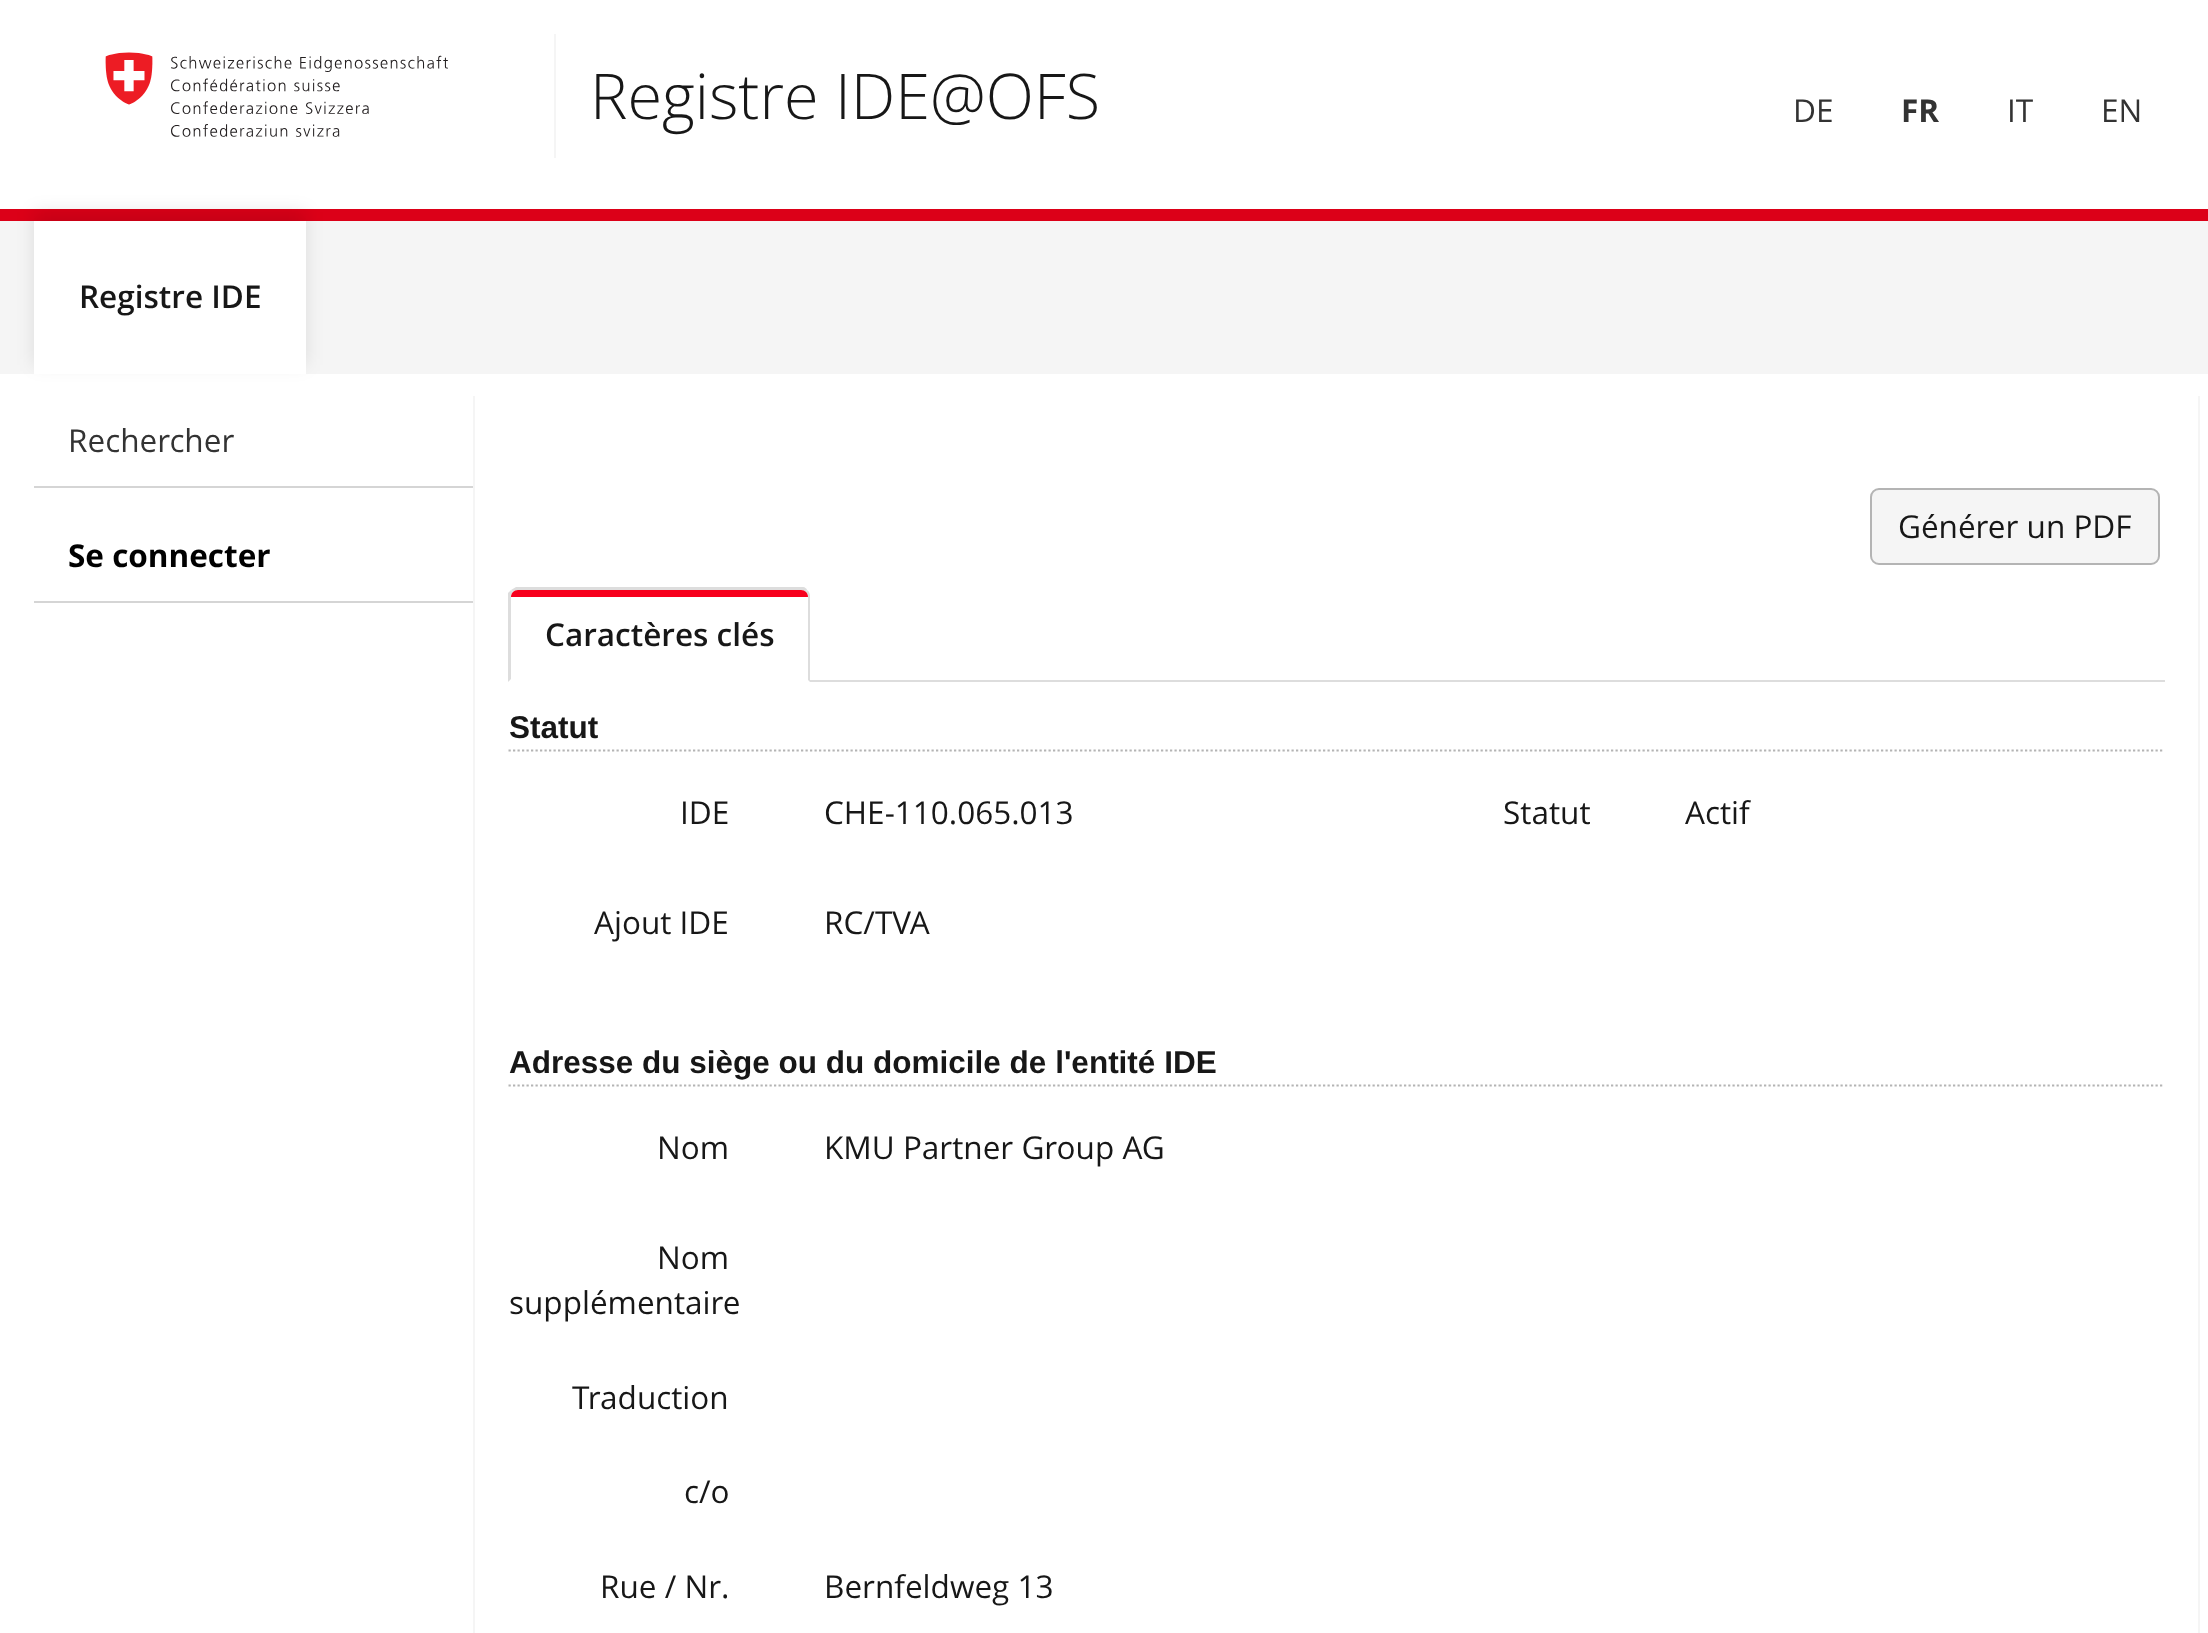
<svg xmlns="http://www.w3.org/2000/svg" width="2208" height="1633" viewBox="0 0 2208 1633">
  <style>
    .t1 { font: 300 63px Open Sans; fill: #171717; }
    .t2 { font: 31.5px Open Sans; fill: #333; }
    .t3 { font: bold 31.5px Open Sans; fill: #333; }
    .t4 { font: 600 31.5px Open Sans; fill: #171717; }
    .t5 { font: bold 31.5px Open Sans; fill: #000; }
    .t6 { font: 31.5px Open Sans; fill: #171717; }
    .t7 { font: bold 31.5px Liberation Sans; fill: #171717; }
  </style>
  <rect width="100%" height="100%" fill="#fff"/>
  <rect x="0" y="209" width="2208" height="12" fill="#dc0018"/>
  <image x="105" y="52" width="343" height="85" href="images/1.png"/>
  <rect x="554" y="34" width="2" height="124" fill="#f5f5f5"/>
  <text x="590" y="119" class="t1">Registre IDE@OFS</text>
  <text x="1793" y="122" class="t2">DE</text>
  <text x="1901" y="122" class="t3">FR</text>
  <text x="2007" y="122" class="t2">IT</text>
  <text x="2101" y="122" class="t2">EN</text>
  <rect x="0" y="221" width="2208" height="153" fill="#f5f5f5"/>
  <rect x="34" y="212" width="272" height="153" fill="#0000001a" filter="blur(9px)"/>
  <rect x="34" y="221" width="272" height="153" fill="#fff"/>
  <text x="79" y="308" class="t4">Registre IDE</text>
  <rect x="34" y="486" width="441" height="2" fill="#d5d5d5"/>
  <text x="68" y="452" class="t2">Rechercher</text>
  <rect x="34" y="601" width="441" height="2" fill="#d5d5d5"/>
  <text x="68" y="567" class="t5">Se connecter</text>
  <rect x="473" y="396" width="2" height="1237" fill="#f5f5f5"/>
  <rect x="1871" y="489" width="288" height="75" rx="8" fill="#f5f5f5" stroke="#b4b4b4" stroke-width="2"/>
  <text x="1898" y="538" class="t6">Générer un PDF</text>
  <rect x="810" y="680" width="1355" height="2" fill="#ddd"/>
  <path d="M518 590C516 590 514 591 513 592L511 590L516 587H803C805 587 807 589 807 590L806 592C804 591 803 590 801 590Z" fill="#ddd"/>
  <path d="M810 682V596C810 594 809 591 807 590L806 592L808 595V680Z" fill="#ddd"/>
  <path d="M508 682V593L511 590L513 592L511 595V679Z" fill="#ddd"/>
  <path d="M518 590H801C805 590 808 593 808 597H511C511 593 514 590 518 590Z" fill="#f7001d"/>
  <text x="545" y="646" class="t4">Caractères clés</text>
  <path d="M508.5 750.5H2164.5" fill="none" stroke="#b4b4b4" stroke-width="2.2" stroke-dasharray="2.25 2.25"/>
  <text x="509" y="738" class="t7">Statut</text>
  <text x="680" y="824" class="t6">IDE</text>
  <text x="824" y="824" class="t6">CHE-110.065.013</text>
  <text x="1503" y="824" class="t6">Statut</text>
  <text x="1685" y="824" class="t6">Actif</text>
  <text x="594" y="934" class="t6">Ajout IDE</text>
  <text x="824" y="934" class="t6">RC/TVA</text>
  <path d="M508.5 1085.5H2164.5" fill="none" stroke="#b4b4b4" stroke-width="2.2" stroke-dasharray="2.25 2.25"/>
  <text x="509" y="1073" class="t7">Adresse du siège ou du domicile de l'entité IDE</text>
  <text x="657" y="1159" class="t6">Nom</text>
  <text x="824" y="1159" class="t6">KMU Partner Group AG</text>
  <text x="657" y="1269" class="t6">Nom</text>
  <text x="509" y="1314" class="t6">supplémentaire</text>
  <text x="572" y="1409" class="t6">Traduction</text>
  <text x="684" y="1503" class="t6">c/o</text>
  <text x="600" y="1598" class="t6">Rue / Nr.</text>
  <text x="824" y="1598" class="t6">Bernfeldweg 13</text>
  <rect x="2198" y="396" width="2" height="1237" fill="#f5f5f5"/>
</svg>
